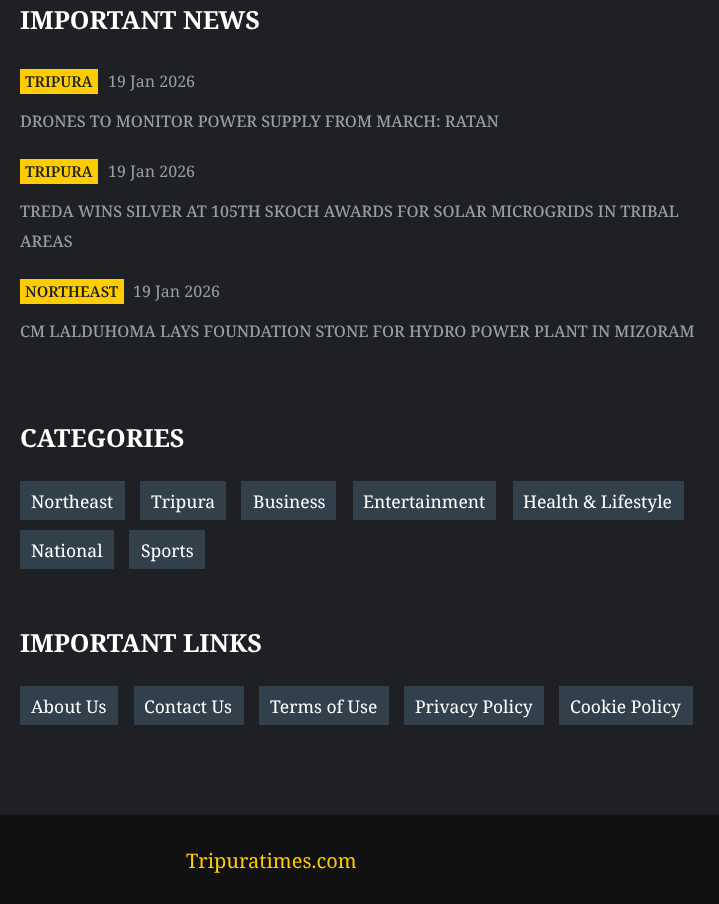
<svg xmlns="http://www.w3.org/2000/svg" width="719" height="904" viewBox="0 0 719 904">
  <style>
    .t1 { font: bold 25px Noto Serif; fill: #fff; }
    .t2 { font: 600 15px Noto Serif; fill: #212529; }
    .t3 { font: 16px Noto Serif; fill: #9a9da2; }
    .t4 { font: 500 16px Noto Serif; fill: #9a9da2; }
    .t5 { font: 17.5px Noto Serif; fill: #fff; }
    .t6 { font: 20px Noto Serif; fill: #fc0; }
  </style>
  <rect width="100%" height="100%" fill="#1e2024"/>
  <text x="20" y="29" class="t1">IMPORTANT NEWS</text>
  <rect x="20" y="69" width="78" height="25" fill="#fc0"/>
  <text x="25" y="87" class="t2">TRIPURA</text>
  <text x="108" y="87" class="t3">19 Jan 2026</text>
  <text x="20" y="127" class="t4">DRONES TO MONITOR POWER SUPPLY FROM MARCH: RATAN</text>
  <rect x="20" y="159" width="78" height="25" fill="#fc0"/>
  <text x="25" y="177" class="t2">TRIPURA</text>
  <text x="108" y="177" class="t3">19 Jan 2026</text>
  <text x="20" y="217" class="t4">TREDA WINS SILVER AT 105TH SKOCH AWARDS FOR SOLAR MICROGRIDS IN TRIBAL</text>
  <text x="20" y="247" class="t4">AREAS</text>
  <rect x="20" y="279" width="104" height="25" fill="#fc0"/>
  <text x="25" y="297" class="t2">NORTHEAST</text>
  <text x="133" y="297" class="t3">19 Jan 2026</text>
  <text x="20" y="337" class="t4">CM LALDUHOMA LAYS FOUNDATION STONE FOR HYDRO POWER PLANT IN MIZORAM</text>
  <text x="20" y="447" class="t1">CATEGORIES</text>
  <rect x="20" y="481" width="105" height="39" fill="#31404b"/>
  <text x="31" y="508" class="t5">Northeast</text>
  <rect x="140" y="481" width="86" height="39" fill="#31404b"/>
  <text x="151" y="508" class="t5">Tripura</text>
  <rect x="241" y="481" width="95" height="39" fill="#31404b"/>
  <text x="253" y="508" class="t5">Business</text>
  <rect x="353" y="481" width="143" height="39" fill="#31404b"/>
  <text x="363" y="508" class="t5">Entertainment</text>
  <rect x="513" y="481" width="171" height="39" fill="#31404b"/>
  <text x="523" y="508" class="t5">Health &amp; Lifestyle</text>
  <rect x="20" y="530" width="94" height="39" fill="#31404b"/>
  <text x="31" y="557" class="t5">National</text>
  <rect x="129" y="530" width="76" height="39" fill="#31404b"/>
  <text x="141" y="557" class="t5">Sports</text>
  <text x="20" y="652" class="t1">IMPORTANT LINKS</text>
  <rect x="20" y="686" width="98" height="39" fill="#31404b"/>
  <text x="31" y="713" class="t5">About Us</text>
  <rect x="134" y="686" width="110" height="39" fill="#31404b"/>
  <text x="144" y="713" class="t5">Contact Us</text>
  <rect x="259" y="686" width="130" height="39" fill="#31404b"/>
  <text x="270" y="713" class="t5">Terms of Use</text>
  <rect x="404" y="686" width="140" height="39" fill="#31404b"/>
  <text x="415" y="713" class="t5">Privacy Policy</text>
  <rect x="559" y="686" width="134" height="39" fill="#31404b"/>
  <text x="570" y="713" class="t5">Cookie Policy</text>
  <rect x="0" y="815" width="719" height="89" fill="#111"/>
  <text x="186" y="868" class="t6">Tripuratimes.com</text>
</svg>
